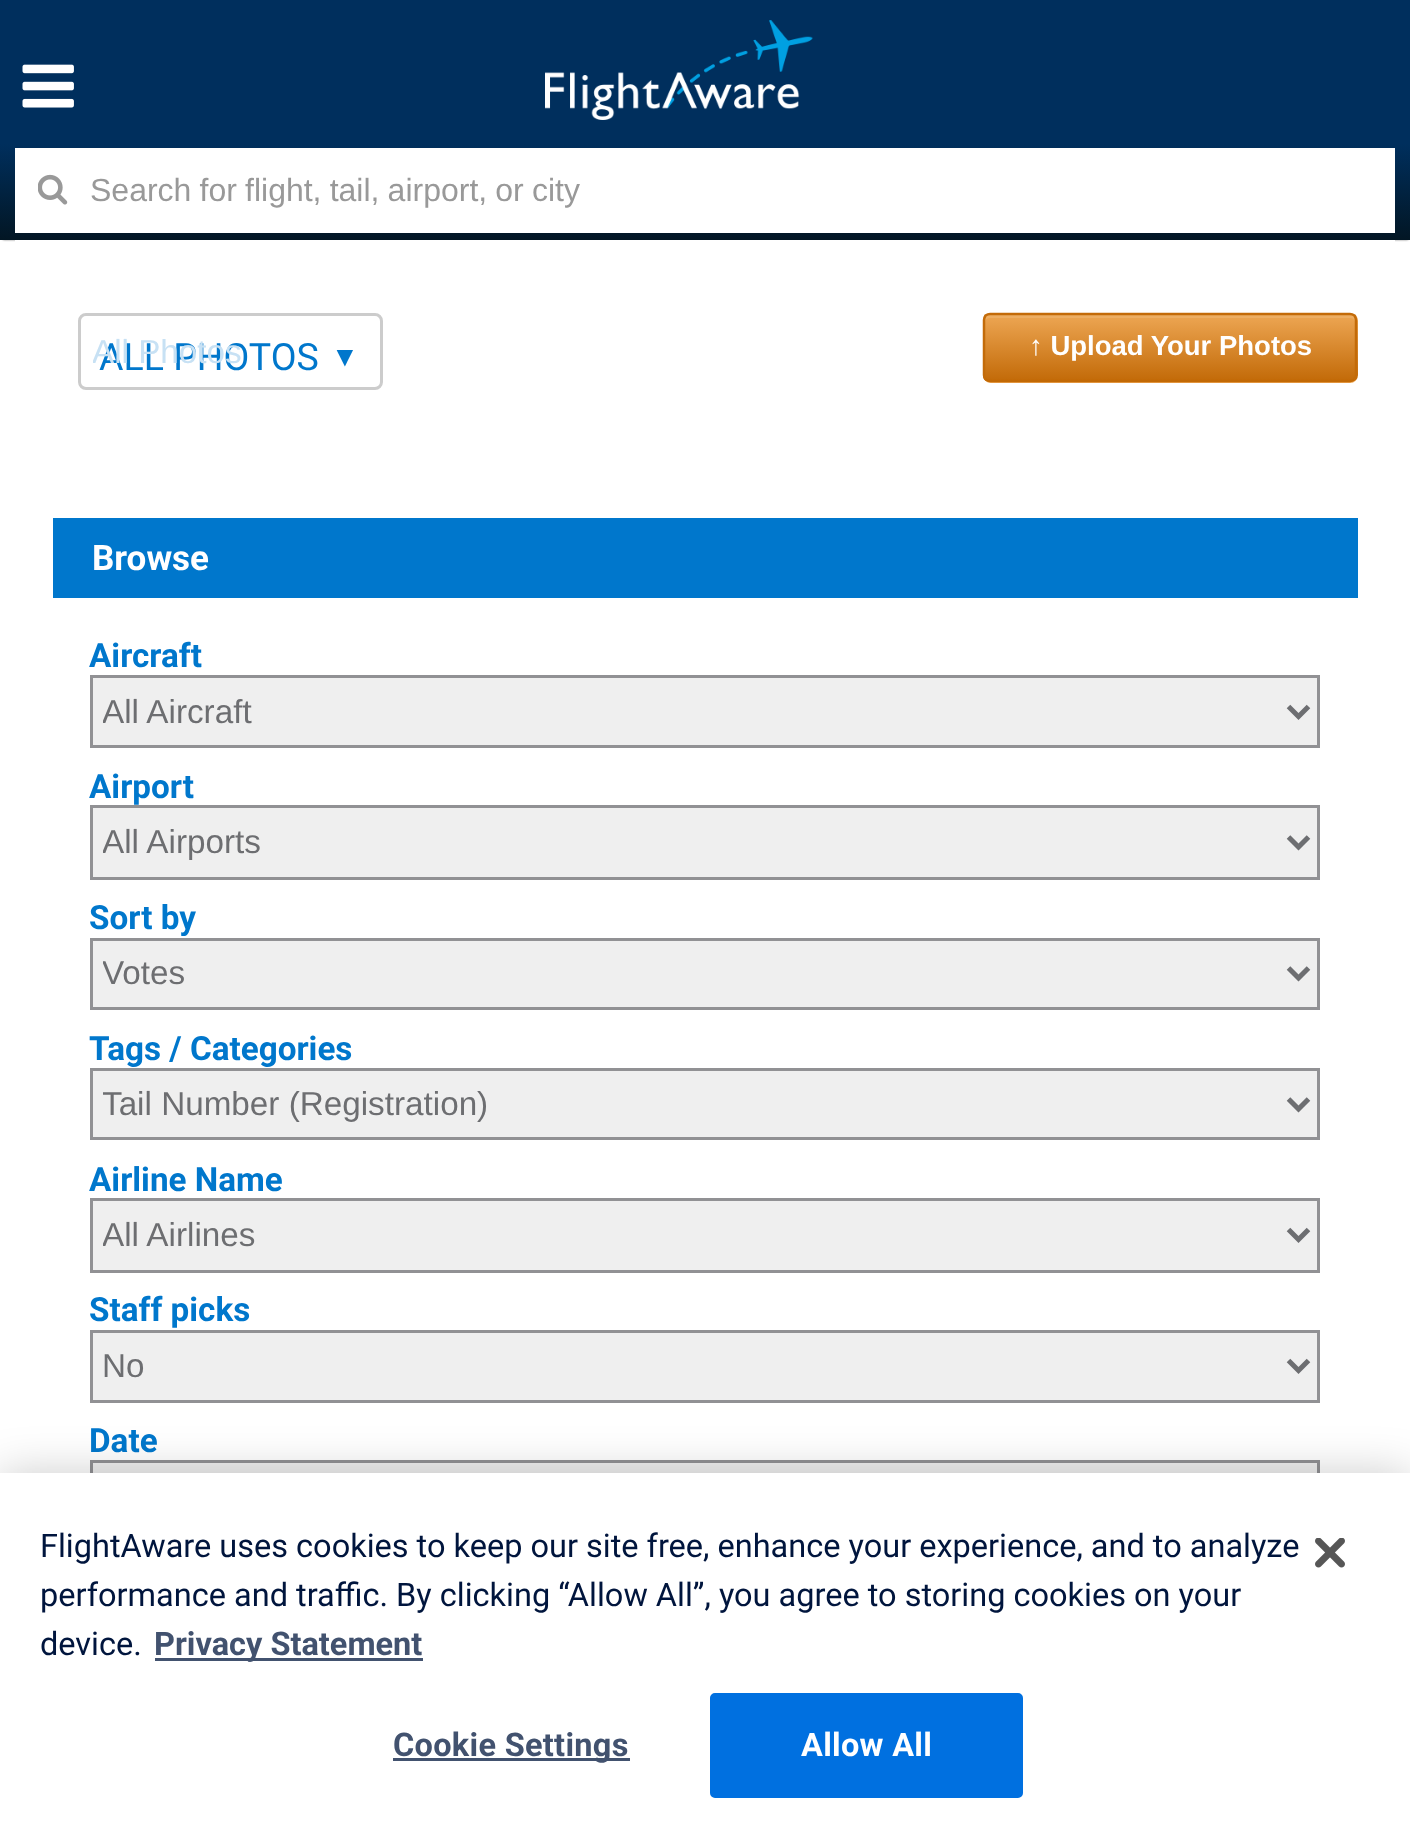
<svg xmlns="http://www.w3.org/2000/svg" width="1410" height="1836" viewBox="0 0 1410 1836">
  <style>
    .t1 { font: 32px Liberation Sans; fill: #999; }
    .t2 { font: 37.5px Roboto; fill: #07c; }
    .t3 { font: 33.25px Liberation Sans; fill: #c7e1f4; }
    .t4 { font: 28px Liberation Sans; fill: #07c; }
    .t5 { font: bold 27.5px Liberation Sans; fill: #fff; }
    .t6 { font: bold 35px Roboto; fill: #fff; }
    .t7 { font: bold 33.25px Roboto; fill: #07c; }
    .t8 { font: 33.25px Liberation Sans; fill: #6d6e71; }
    .t9 { font: 32.5px Roboto; fill: #00153d; }
    .t10 { font: bold 32.5px Roboto; fill: #42526f; }
    .t11 { font: bold 32.5px Roboto; letter-spacing: 0.3px; fill: #42526f; }
    .t12 { font: bold 32.5px Roboto; letter-spacing: 0.3px; fill: #fff; }
  </style>
  <defs>
    <linearGradient id="g1" gradientUnits="userSpaceOnUse" x1="705" y1="0" x2="705" y2="240"><stop offset="0" stop-color="#002f5d"/><stop offset="0.6" stop-color="#002f5d"/><stop offset="1" stop-color="#021624"/></linearGradient>
    <clipPath id="clip1"><rect x="93" y="330" width="295" height="43"/></clipPath>
    <clipPath id="clip2"><rect x="983" y="313" width="375" height="70" rx="8"/></clipPath>
    <linearGradient id="g2" gradientUnits="userSpaceOnUse" x1="985" y1="315" x2="985" y2="380"><stop offset="0" stop-color="#eda653"/><stop offset="1" stop-color="#c36b09"/></linearGradient>
    <linearGradient id="g3" gradientUnits="userSpaceOnUse" x1="985" y1="380" x2="985" y2="445"><stop offset="0" stop-color="#eda653"/><stop offset="1" stop-color="#c36b09"/></linearGradient>
    <clipPath id="clip3"><rect x="103" y="690" width="1175" height="43"/></clipPath>
    <clipPath id="clip4"><rect x="103" y="820" width="1175" height="43"/></clipPath>
    <clipPath id="clip5"><rect x="103" y="953" width="1175" height="42"/></clipPath>
    <clipPath id="clip6"><rect x="103" y="1083" width="1175" height="42"/></clipPath>
    <clipPath id="clip7"><rect x="103" y="1213" width="1175" height="42"/></clipPath>
  </defs>
  <rect width="100%" height="100%" fill="#fff"/>
  <rect x="3" y="5" width="1405" height="235" fill="#888" filter="blur(1px)"/>
  <rect x="0" y="0" width="1410" height="240" fill="url(#g1)"/>
  <image x="22" y="64" width="52" height="44" href="images/1.png"/>
  <image x="545" y="20" width="268" height="100" href="images/2.png"/>
  <rect x="15" y="148" width="1380" height="85" fill="#fff"/>
  <image x="38" y="174" width="30" height="31" href="images/3.png"/>
  <text x="90" y="201" word-spacing="-0.75" class="t1">Search for flight, tail, airport, or city</text>
  <rect x="15" y="240" width="1380" height="2" fill="#fff"/>
  <rect x="79.5" y="314.5" width="302" height="74" rx="6.5" fill="none" stroke="#ccc" stroke-width="3"/>
  <text x="99" y="370" class="t2">ALL PHOTOS</text>
  <g clip-path="url(#clip1)">
    <text x="92" y="363" class="t3">All Photos</text>
  </g>
  <text x="331" y="366" class="t4">▼</text>
  <g clip-path="url(#clip2)">
    <rect x="983" y="315" width="375" height="65" fill="url(#g2)"/>
    <rect x="983" y="380" width="375" height="3" fill="url(#g3)"/>
  </g>
  <path d="M990 318H1350C1353 318 1355 320 1355 322C1355 319 1354 315 1350 315H990C986 315 985 319 985 322C985 320 987 318 990 318Z" fill="#edae63"/>
  <path d="M1354.5 379.5C1353 380.5 1351.5 381 1350 381H990C988.5 381 987 380.5 985.5 379.5" fill="none" stroke="#c26905" stroke-width="2.5"/>
  <path d="M985.5 379.5C984.5 378 984 376.5 984 375V320C984 318.5 984.5 317 985.5 315.5C987 314.5 988.5 314 990 314H1350C1351.5 314 1353 314.5 1354.5 315.5C1355.5 317 1356 318.5 1356 320V375C1356 376.5 1355.5 378 1354.5 379.5" fill="none" stroke="#c36b09" stroke-width="2.5"/>
  <text x="1029" y="355" class="t5">↑ Upload Your Photos</text>
  <rect x="53" y="518" width="1305" height="80" fill="#07c"/>
  <text x="92" y="570" class="t6">Browse</text>
  <text x="89" y="667" class="t7">Aircraft</text>
  <rect x="91.5" y="676.5" width="1227" height="70" fill="#efefef" stroke="#919194" stroke-width="3"/>
  <path d="M1288.5 706.5L1298.5 716.5L1308.5 706.5" fill="none" stroke="#6d6e71" stroke-width="5"/>
  <g clip-path="url(#clip3)">
    <text x="102" y="723" class="t8">All Aircraft</text>
  </g>
  <text x="89" y="798" class="t7">Airport</text>
  <rect x="91.5" y="806.5" width="1227" height="72" fill="#efefef" stroke="#919194" stroke-width="3"/>
  <path d="M1288.5 837L1298.5 847L1308.5 837" fill="none" stroke="#6d6e71" stroke-width="5"/>
  <g clip-path="url(#clip4)">
    <text x="102" y="853" class="t8">All Airports</text>
  </g>
  <text x="89" y="929" class="t7">Sort by</text>
  <rect x="91.5" y="939.5" width="1227" height="69" fill="#efefef" stroke="#919194" stroke-width="3"/>
  <path d="M1288.5 968L1298.5 978L1308.5 968" fill="none" stroke="#6d6e71" stroke-width="5"/>
  <g clip-path="url(#clip5)">
    <text x="102" y="984" class="t8">Votes</text>
  </g>
  <text x="89" y="1060" class="t7">Tags / Categories</text>
  <rect x="91.5" y="1069.5" width="1227" height="69" fill="#efefef" stroke="#919194" stroke-width="3"/>
  <path d="M1288.5 1099L1298.5 1109L1308.5 1099" fill="none" stroke="#6d6e71" stroke-width="5"/>
  <g clip-path="url(#clip6)">
    <text x="102" y="1115" class="t8">Tail Number (Registration)</text>
  </g>
  <text x="89" y="1191" class="t7">Airline Name</text>
  <rect x="91.5" y="1199.5" width="1227" height="72" fill="#efefef" stroke="#919194" stroke-width="3"/>
  <path d="M1288.5 1229.5L1298.5 1239.5L1308.5 1229.5" fill="none" stroke="#6d6e71" stroke-width="5"/>
  <g clip-path="url(#clip7)">
    <text x="102" y="1246" class="t8">All Airlines</text>
  </g>
  <text x="89" y="1321" class="t7">Staff picks</text>
  <rect x="91.5" y="1331.5" width="1227" height="70" fill="#efefef" stroke="#919194" stroke-width="3"/>
  <path d="M1288.5 1360.5L1298.5 1370.5L1308.5 1360.5" fill="none" stroke="#6d6e71" stroke-width="5"/>
  <text x="102" y="1377" class="t8">No</text>
  <text x="89" y="1452" class="t7">Date</text>
  <rect x="93" y="1463" width="1224" height="10" fill="#efefef"/>
  <rect x="91.5" y="1461.5" width="1227" height="70" fill="none" stroke="#919194" stroke-width="3"/>
  <rect x="0" y="1473" width="1410" height="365" fill="#00000033" filter="blur(22.5px)"/>
  <rect x="0" y="1473" width="1410" height="363" fill="#fff"/>
  <text x="40" y="1557" class="t9">FlightAware uses cookies to keep our site free, enhance your experience, and to analyze</text>
  <text x="40" y="1606" class="t9">performance and traffic. By clicking “Allow All”, you agree to storing cookies on your</text>
  <text x="40" y="1655" class="t9">device.</text>
  <rect x="155" y="1658" width="268" height="3" fill="#42526f"/>
  <text x="154" y="1655" class="t10">Privacy Statement</text>
  <rect x="393" y="1758" width="237" height="3" fill="#42526f"/>
  <text x="393" y="1756" class="t11">Cookie Settings</text>
  <rect x="711.5" y="1694.5" width="310" height="102" rx="3.5" fill="#0070e0" stroke="#0070e0" stroke-width="3"/>
  <text x="801" y="1756" class="t12">Allow All</text>
  <image x="1315" y="1538" width="30" height="30" href="images/4.png"/>
</svg>
